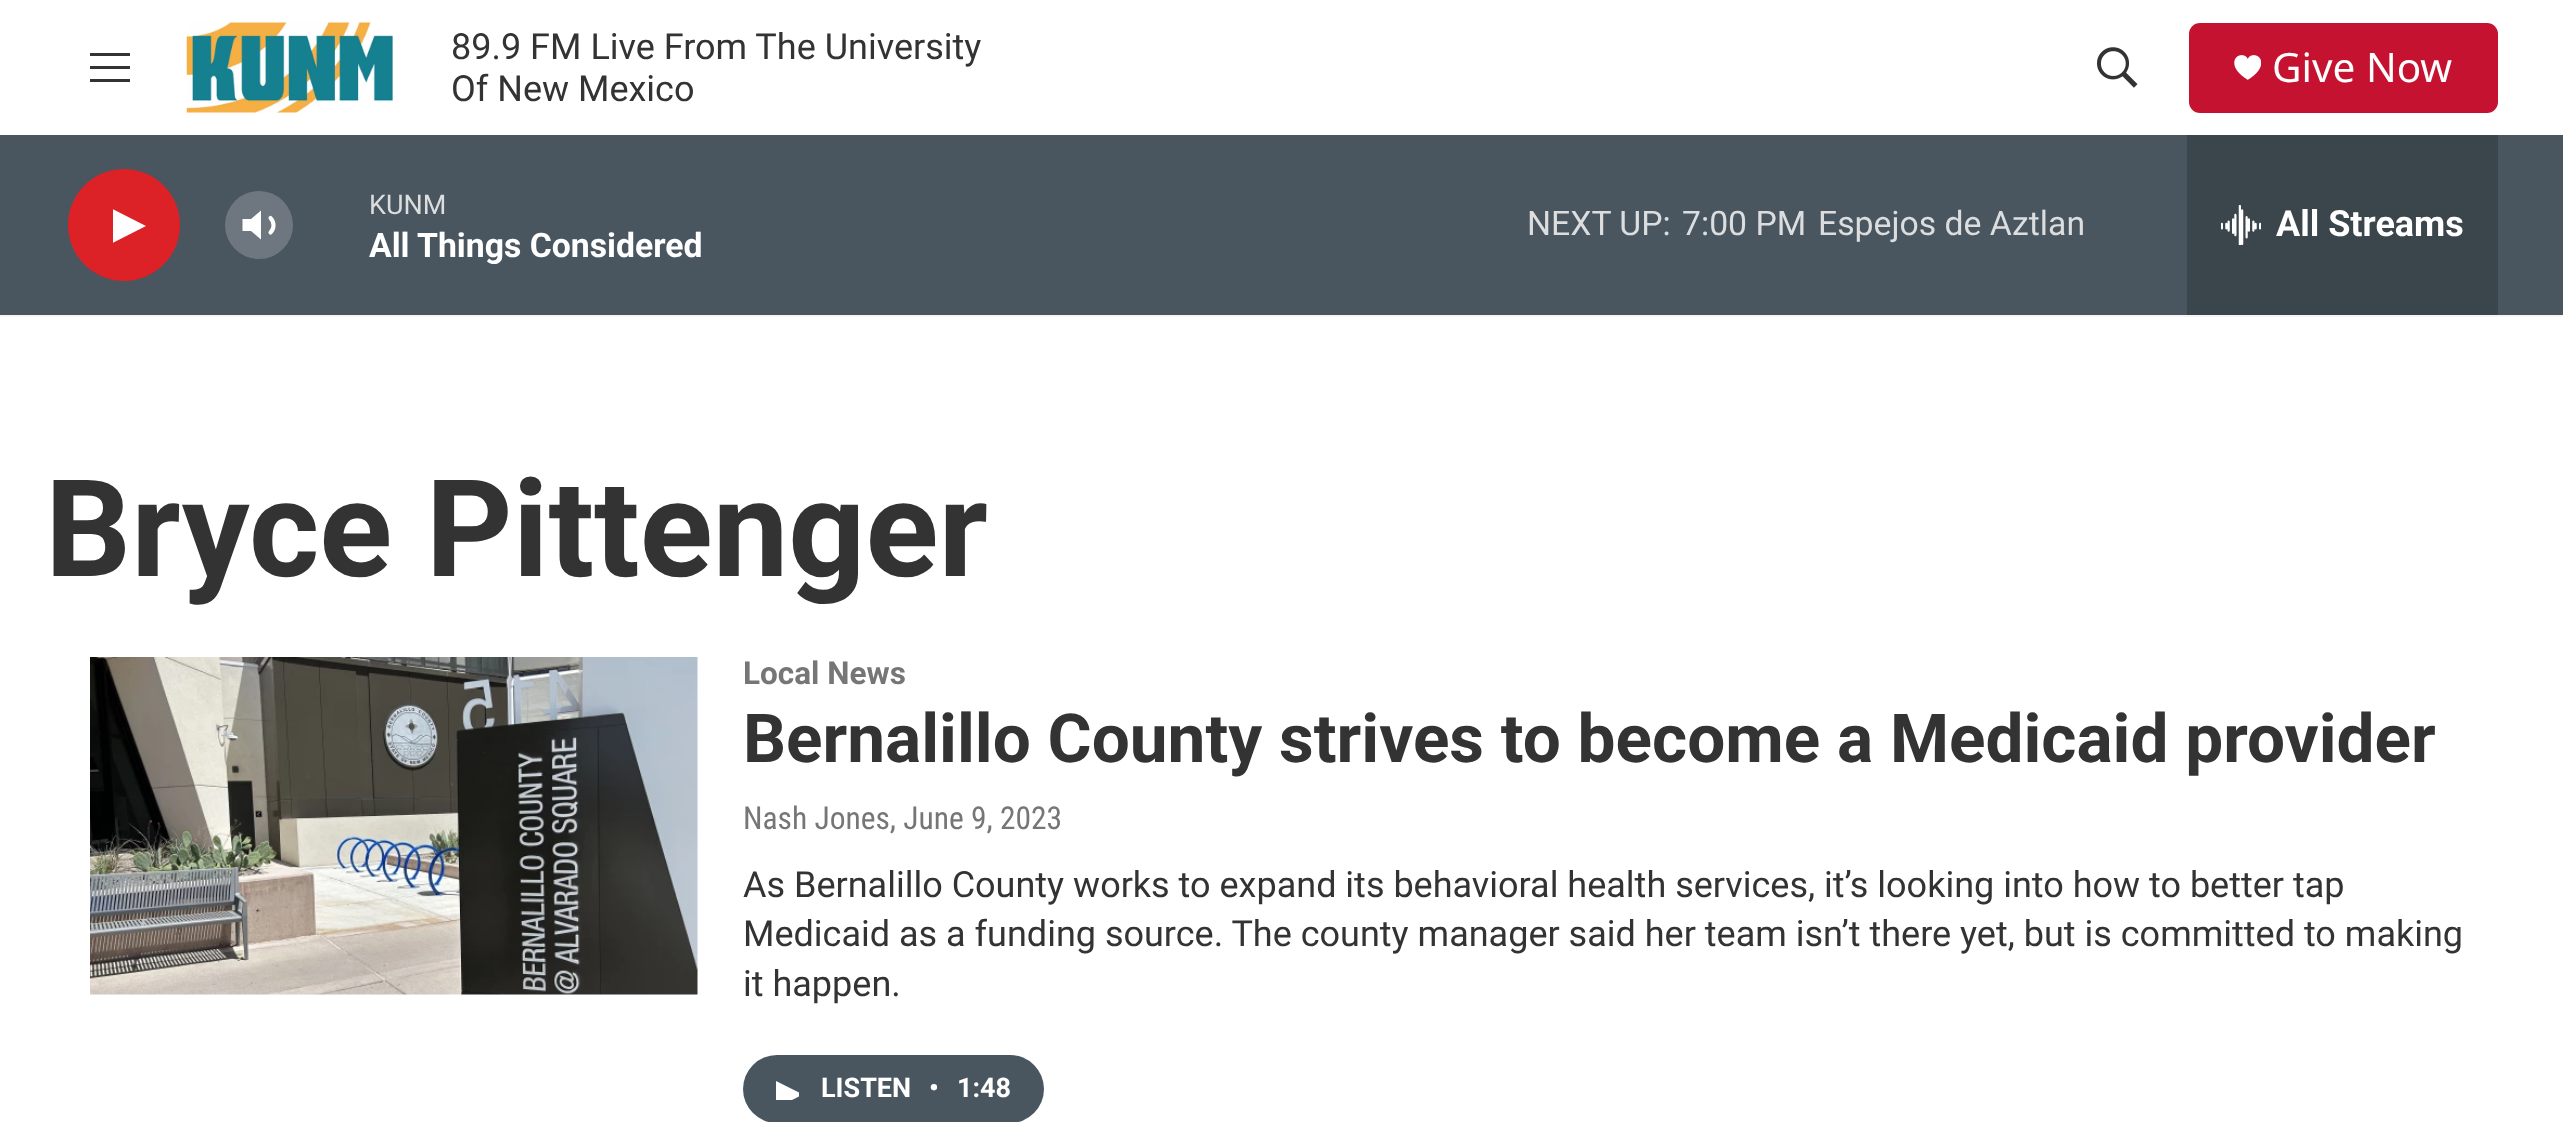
<svg xmlns="http://www.w3.org/2000/svg" width="2563" height="1122" viewBox="0 0 2563 1122">
  <style>
    .t1 { font: 36px Roboto; fill: #333; }
    .t2 { font: 40.5px Noto Sans; fill: #fff; }
    .t3 { font: 27px Roboto; fill: #dbdddf; }
    .t4 { font: bold 33.75px 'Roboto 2'; fill: #fff; }
    .t5 { font: 33.75px Roboto; fill: #dbdddf; }
    .t6 { font: bold 36px 'Roboto 2'; fill: #fff; }
    .t7 { font: bold 135px Roboto; fill: #333; }
    .t8 { font: bold 31.5px Roboto; fill: #767676; }
    .t9 { font: bold 67.5px Roboto; fill: #333; }
    .t10 { font: 31.5px Roboto Condensed; fill: #767676; }
    .t11 { font: bold 27px 'Roboto 2'; fill: #fff; }
  </style>
  <defs>
    <clipPath id="clip1"><rect x="113" y="205" width="33" height="43"/></clipPath>
    <clipPath id="clip2"><rect x="776" y="1078" width="23" height="22"/></clipPath>
  </defs>
  <rect width="100%" height="100%" fill="#fff"/>
  <rect x="0" y="315" width="2563" height="2" fill="#f5f5f5"/>
  <path d="M90 69V66H130V69ZM90 56V53H130V56ZM90 82V79H130V82Z" fill="#333" fill-rule="evenodd"/>
  <image x="186" y="22" width="207" height="91" href="images/1.png"/>
  <text x="451" y="59" class="t1">89.9 FM Live From The University</text>
  <text x="451" y="101" class="t1">Of New Mexico</text>
  <image x="2097" y="47" width="41" height="41" href="images/2.png"/>
  <rect x="2189" y="23" width="309" height="90" rx="11" fill="#c41230"/>
  <image x="2234" y="55" width="27" height="25" href="images/3.png"/>
  <text x="2272" y="82" class="t2">Give Now</text>
  <rect x="0" y="135" width="2563" height="180" fill="#4a565f"/>
  <circle cx="124" cy="225" r="56" fill="#dc2127"/>
  <g clip-path="url(#clip1)">
    <path d="M112.5 209L146 226L112.5 243Z" fill="#fff"/>
  </g>
  <path d="M261 210.5L251 219H242.5V231H251L261 239.5Z" fill="#fff"/>
  <path d="M270.5 218C274.5 222 274.5 228.5 270.5 232.5" fill="none" stroke="#fff" stroke-width="4.1" stroke-linecap="round" stroke-linejoin="round"/>
  <circle cx="259" cy="225" r="34" fill="#ffffff33"/>
  <text x="369" y="214" class="t3">KUNM</text>
  <text x="369" y="257" class="t4">All Things Considered</text>
  <text x="1527" y="235" class="t5">NEXT UP:</text>
  <text x="1682" y="235" class="t5">7:00 PM</text>
  <text x="1818" y="235" class="t5">Espejos de Aztlan</text>
  <rect x="2187" y="135" width="311" height="180" fill="#3b454c"/>
  <image x="2221" y="205" width="40" height="40" href="images/4.png"/>
  <text x="2276" y="236" class="t6">All Streams</text>
  <text x="45" y="576" class="t7">Bryce Pittenger</text>
  <image x="90" y="657" width="608" height="338" href="images/5.png"/>
  <text x="743" y="684" class="t8">Local News</text>
  <text x="743" y="762" class="t9">Bernalillo County strives to become a Medicaid provider</text>
  <text x="743" y="829" class="t10">Nash Jones, June 9, 2023</text>
  <text x="743" y="897" class="t1">As Bernalillo County works to expand its behavioral health services, it’s looking into how to better tap</text>
  <text x="743" y="946" class="t1">Medicaid as a funding source. The county manager said her team isn’t there yet, but is committed to making</text>
  <text x="743" y="996" class="t1">it happen.</text>
  <rect x="743" y="1055" width="301" height="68" rx="34" fill="#4a565f"/>
  <g clip-path="url(#clip2)">
    <path d="M776 1081L803 1094.5L776 1108Z" fill="#fff"/>
  </g>
  <text x="821" y="1097" class="t11">LISTEN</text>
  <text x="929" y="1097" class="t11">•</text>
  <text x="957" y="1097" class="t11">1:48</text>
</svg>
